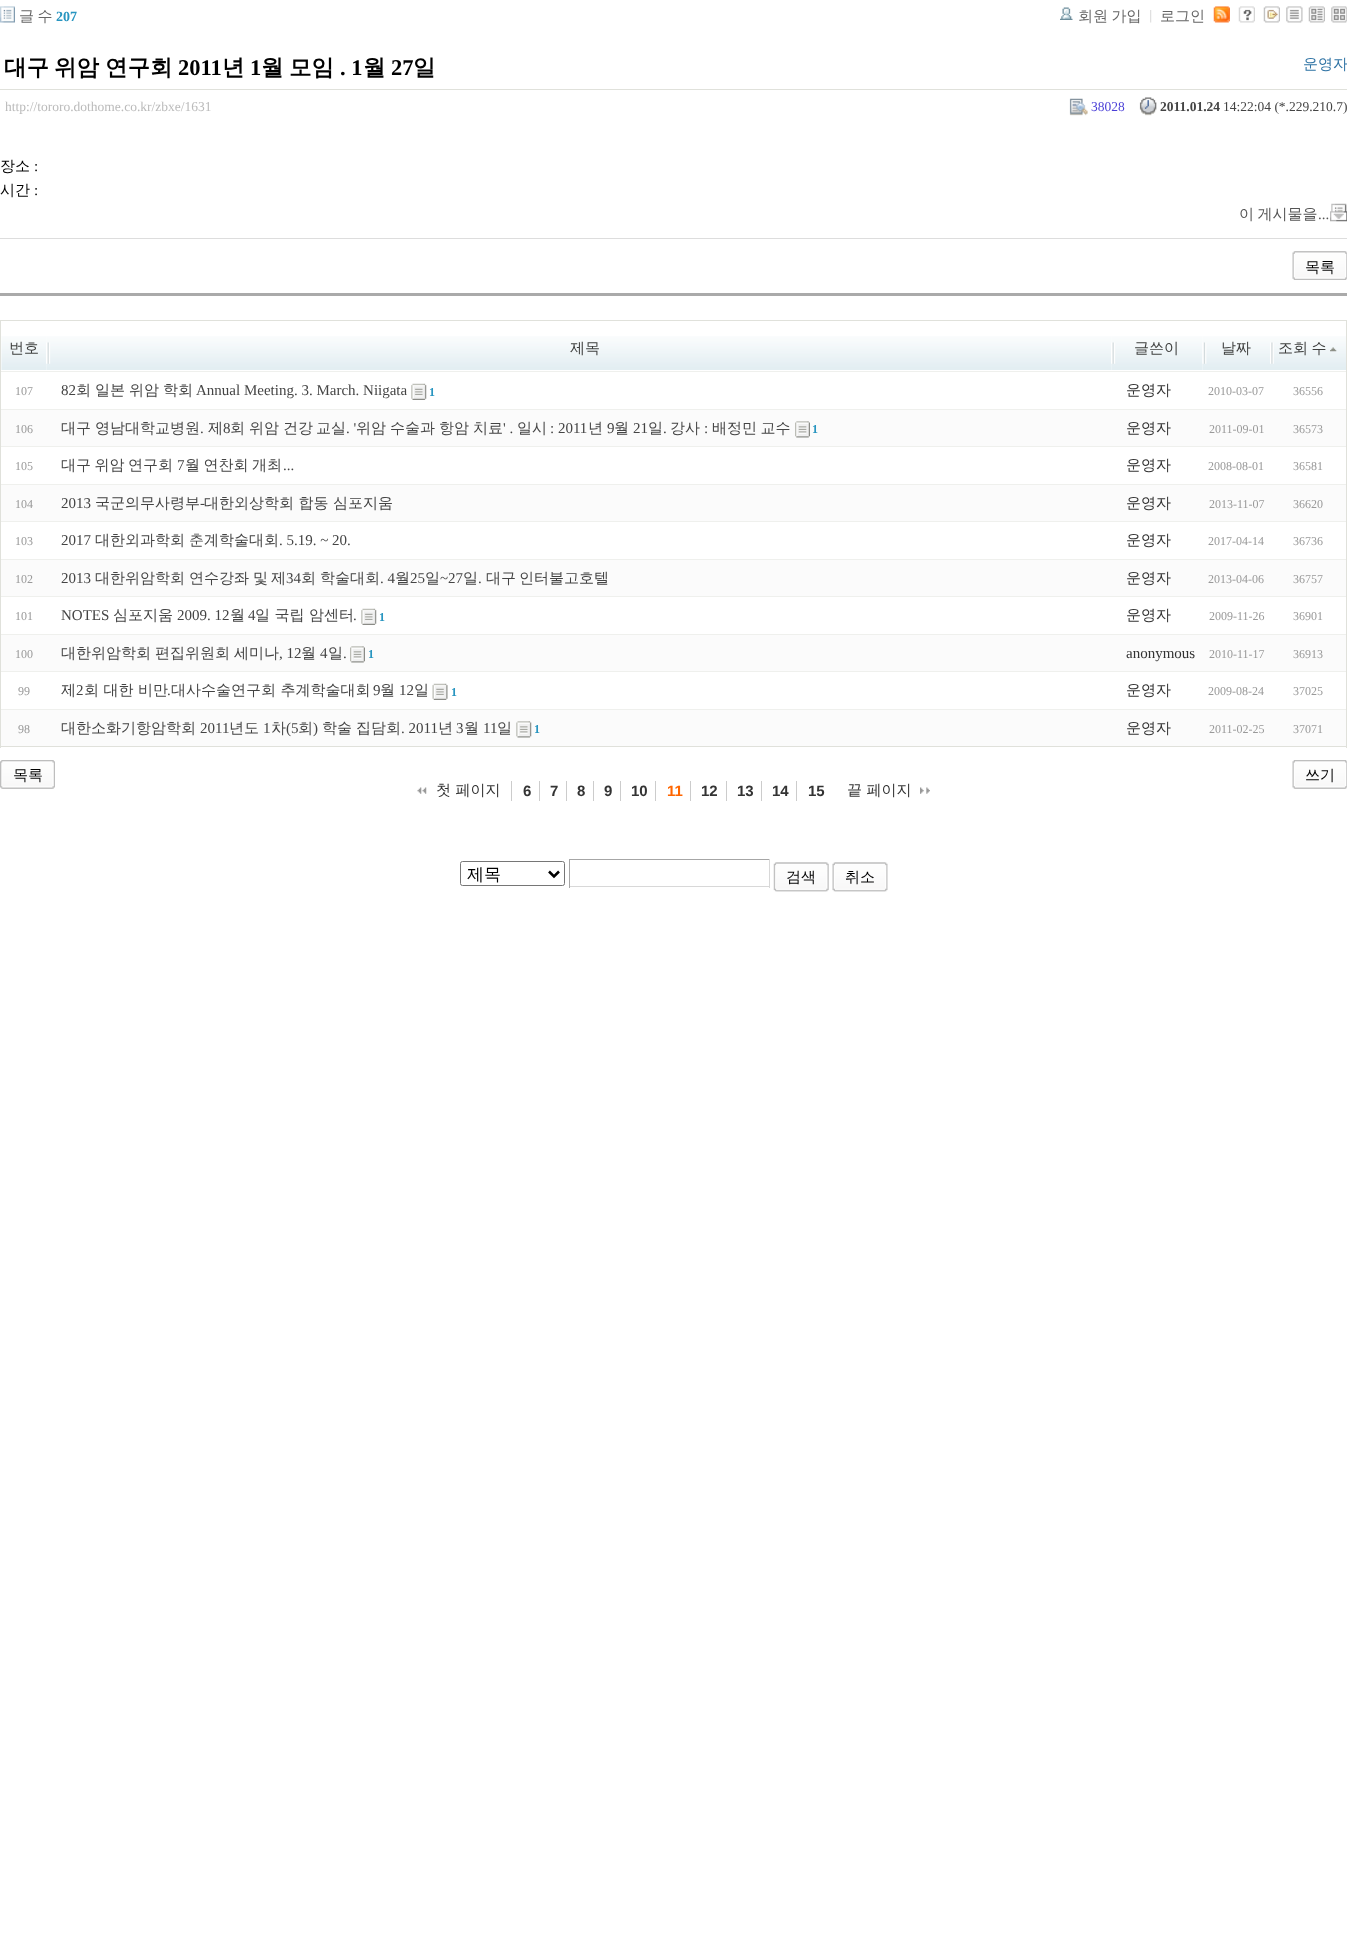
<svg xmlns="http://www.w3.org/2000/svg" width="1347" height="1939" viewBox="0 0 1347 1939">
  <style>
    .t1 { font: 500 15px WenQuanYi Zen Hei; fill: #666; }
    .t2 { font: bold 14px Liberation Serif; fill: #2895c0; }
    .t3 { font: bold 22.5px WenQuanYi Zen Hei; fill: #000; }
    .t4 { font: bold 22.5px Liberation Serif; fill: #000; }
    .t5 { font: 500 15px WenQuanYi Zen Hei; fill: #3074a5; }
    .t6 { font: 13.5px Liberation Serif; fill: #bbb; }
    .t7 { font: 13.5px Liberation Serif; fill: #4a3fd7; }
    .t8 { font: bold 13.5px Liberation Serif; fill: #444; }
    .t9 { font: 13.5px Liberation Serif; fill: #444; }
    .t10 { font: 500 15px WenQuanYi Zen Hei; fill: #000; }
    .t11 { font: 15px Liberation Serif; fill: #000; }
    .t12 { font: 500 15px WenQuanYi Zen Hei; fill: #555; }
    .t13 { font: 15px Liberation Serif; fill: #555; }
    .t14 { font: 500 15px WenQuanYi Zen Hei; fill: #3e3f3e; }
    .t15 { font: 12px Liberation Serif; fill: #999; }
    .t16 { font: 15px Liberation Serif; fill: #444; }
    .t17 { font: 500 15px WenQuanYi Zen Hei; fill: #444; }
    .t18 { font: bold 12px Liberation Serif; fill: #2895c0; }
    .t19 { font: 500 15px WenQuanYi Zen Hei; fill: #333; }
    .t20 { font: 15px Liberation Serif; fill: #333; }
    .t21 { font: bold 15px Liberation Sans; fill: #333; }
    .t22 { font: bold 15px Liberation Sans; fill: #f60; }
    .t23 { font: 500 17px WenQuanYi Zen Hei; fill: #000; }
  </style>
  <rect width="100%" height="100%" fill="#fff"/>
  <image x="0" y="6" width="15" height="17" href="images/1.png"/>
  <text x="19" y="21" word-spacing="-1" class="t1">글 수</text>
  <text x="56" y="21" class="t2">207</text>
  <image x="1060" y="7" width="13" height="13" href="images/2.png"/>
  <text x="1078" y="21" word-spacing="-1" class="t1">회원 가입</text>
  <image x="1150" y="10" width="2" height="13" href="images/3.png"/>
  <text x="1160" y="21" class="t1">로그인</text>
  <image x="1213" y="6" width="17" height="17" href="images/4.png"/>
  <image x="1238" y="6" width="17" height="17" href="images/5.png"/>
  <image x="1263" y="6" width="17" height="17" href="images/6.png"/>
  <image x="1286" y="6" width="17" height="17" href="images/7.png"/>
  <image x="1308" y="6" width="17" height="17" href="images/8.png"/>
  <image x="1331" y="6" width="16" height="17" href="images/9.png"/>
  <rect x="0" y="293" width="1347" height="3" fill="#aaa"/>
  <rect x="0" y="89" width="1347" height="1" fill="#e0e1db"/>
  <text x="4" y="75" class="t3">대구</text>
  <text x="54" y="75" class="t3">위암</text>
  <text x="105" y="75" class="t3">연구회</text>
  <text x="178" y="75" class="t4">2011</text>
  <text x="222" y="75" class="t3">년</text>
  <text x="250" y="75" class="t4">1</text>
  <text x="261" y="75" class="t3">월</text>
  <text x="289" y="75" class="t3">모임</text>
  <text x="340" y="75" class="t4">. 1</text>
  <text x="363" y="75" class="t3">월</text>
  <text x="391" y="75" class="t4">27</text>
  <text x="413" y="75" class="t3">일</text>
  <text x="1303" y="69" class="t5">운영자</text>
  <text x="5" y="111" class="t6">http://tororo.dothome.co.kr/zbxe/1631</text>
  <image x="1069" y="98" width="19" height="18" href="images/10.png"/>
  <text x="1091" y="111" class="t7">38028</text>
  <image x="1139" y="97" width="18" height="19" href="images/11.png"/>
  <text x="1160" y="111" class="t8">2011.01.24</text>
  <text x="1223" y="111" class="t9">14:22:04 (*.229.210.7)</text>
  <text x="0" y="171" class="t10">장소</text>
  <text x="34" y="171" class="t11">:</text>
  <text x="0" y="195" class="t10">시간</text>
  <text x="34" y="195" class="t11">:</text>
  <image x="1330" y="203" width="17" height="19" href="images/12.png"/>
  <text x="1239" y="219" word-spacing="-1" class="t12">이 게시물을</text>
  <text x="1318" y="219" class="t13">...</text>
  <rect x="0" y="238" width="1347" height="1" fill="#ddd"/>
  <image x="1292" y="251" width="53" height="29" href="images/13.png"/>
  <image x="1295" y="251" width="52" height="29" href="images/14.png"/>
  <text x="1305" y="272" class="t10">목록</text>
  <rect x="1346" y="320" width="1" height="428" fill="#e0e1db"/>
  <rect x="0" y="746" width="1347" height="1" fill="#e0e1db"/>
  <rect x="0" y="320" width="1" height="428" fill="#e0e1db"/>
  <image x="1" y="336" width="45" height="34" href="images/15.png"/>
  <rect x="1" y="320" width="1345" height="1" fill="#e0e1db"/>
  <text x="9" y="353" class="t14">번호</text>
  <image x="46" y="336" width="1065" height="34" href="images/16.png"/>
  <text x="570" y="353" class="t14">제목</text>
  <image x="1111" y="336" width="92" height="34" href="images/17.png"/>
  <text x="1134" y="353" class="t14">글쓴이</text>
  <image x="1202" y="336" width="68" height="34" href="images/18.png"/>
  <text x="1221" y="353" class="t14">날짜</text>
  <image x="1270" y="336" width="76" height="34" href="images/19.png"/>
  <text x="1278" y="353" word-spacing="-1" class="t14">조회 수</text>
  <image x="1330" y="347" width="7" height="5" href="images/20.png"/>
  <rect x="1" y="371" width="1345" height="1" fill="#eff0ed"/>
  <text x="15" y="395" class="t15">107</text>
  <text x="61" y="395" class="t16">82</text>
  <text x="76" y="395" class="t17">회</text>
  <text x="95" y="395" class="t17">일본</text>
  <text x="129" y="395" class="t17">위암</text>
  <text x="163" y="395" class="t17">학회</text>
  <text x="196" y="395" class="t16">Annual Meeting. 3. March. Niigata</text>
  <image x="411" y="383" width="16" height="17" href="images/21.png"/>
  <text x="429" y="396" class="t18">1</text>
  <text x="1126" y="395" class="t19">운영자</text>
  <text x="1208" y="395" class="t15">2010-03-07</text>
  <text x="1293" y="395" class="t15">36556</text>
  <rect x="1" y="410" width="1345" height="36" fill="#fbfbfb"/>
  <rect x="1" y="409" width="1345" height="1" fill="#eff0ed"/>
  <text x="15" y="433" class="t15">106</text>
  <text x="61" y="433" class="t17">대구</text>
  <text x="95" y="433" class="t17">영남대학교병원</text>
  <text x="200" y="433" class="t16">.</text>
  <text x="208" y="433" class="t17">제</text>
  <text x="223" y="433" class="t16">8</text>
  <text x="230" y="433" class="t17">회</text>
  <text x="249" y="433" class="t17">위암</text>
  <text x="283" y="433" class="t17">건강</text>
  <text x="316" y="433" class="t17">교실</text>
  <text x="346" y="433" class="t16">. '</text>
  <text x="356" y="433" class="t17">위암</text>
  <text x="390" y="433" class="t17">수술과</text>
  <text x="439" y="433" class="t17">항암</text>
  <text x="473" y="433" class="t17">치료</text>
  <text x="503" y="433" class="t16">' .</text>
  <text x="517" y="433" class="t17">일시</text>
  <text x="550" y="433" class="t16">: 2011</text>
  <text x="588" y="433" class="t17">년</text>
  <text x="607" y="433" class="t16">9</text>
  <text x="614" y="433" class="t17">월</text>
  <text x="633" y="433" class="t16">21</text>
  <text x="648" y="433" class="t17">일</text>
  <text x="663" y="433" class="t16">.</text>
  <text x="670" y="433" class="t17">강사</text>
  <text x="704" y="433" class="t16">:</text>
  <text x="712" y="433" word-spacing="-1" class="t17">배정민 교수</text>
  <image x="795" y="421" width="15" height="17" href="images/22.png"/>
  <text x="812" y="433" class="t18">1</text>
  <text x="1126" y="433" class="t19">운영자</text>
  <text x="1209" y="433" class="t15">2011-09-01</text>
  <text x="1293" y="433" class="t15">36573</text>
  <rect x="1" y="446" width="1345" height="1" fill="#eff0ed"/>
  <text x="15" y="470" class="t15">105</text>
  <text x="61" y="470" word-spacing="-1" class="t17">대구 위암 연구회</text>
  <text x="177" y="470" class="t16">7</text>
  <text x="185" y="470" word-spacing="-1" class="t17">월 연찬회 개최</text>
  <text x="283" y="470" class="t16">...</text>
  <text x="1126" y="470" class="t19">운영자</text>
  <text x="1208" y="470" class="t15">2008-08-01</text>
  <text x="1293" y="470" class="t15">36581</text>
  <rect x="1" y="485" width="1345" height="36" fill="#fbfbfb"/>
  <rect x="1" y="484" width="1345" height="1" fill="#eff0ed"/>
  <text x="15" y="508" class="t15">104</text>
  <text x="61" y="508" class="t16">2013</text>
  <text x="95" y="508" class="t17">국군의무사령부</text>
  <text x="200" y="508" class="t16">-</text>
  <text x="204" y="508" class="t17">대한외상학회 합동 심포지움</text>
  <text x="1126" y="508" class="t19">운영자</text>
  <text x="1209" y="508" class="t15">2013-11-07</text>
  <text x="1293" y="508" class="t15">36620</text>
  <rect x="1" y="521" width="1345" height="1" fill="#eff0ed"/>
  <text x="15" y="545" class="t15">103</text>
  <text x="61" y="545" class="t16">2017</text>
  <text x="95" y="545" class="t17">대한외과학회</text>
  <text x="189" y="545" class="t17">춘계학술대회</text>
  <text x="279" y="545" class="t16">. 5.19. ~ 20.</text>
  <text x="1126" y="545" class="t19">운영자</text>
  <text x="1208" y="545" class="t15">2017-04-14</text>
  <text x="1293" y="545" class="t15">36736</text>
  <rect x="1" y="560" width="1345" height="36" fill="#fbfbfb"/>
  <rect x="1" y="559" width="1345" height="1" fill="#eff0ed"/>
  <text x="15" y="583" class="t15">102</text>
  <text x="61" y="583" class="t16">2013</text>
  <text x="95" y="583" class="t17">대한위암학회</text>
  <text x="189" y="583" class="t17">연수강좌</text>
  <text x="253" y="583" class="t17">및</text>
  <text x="271" y="583" class="t17">제</text>
  <text x="286" y="583" class="t16">34</text>
  <text x="301" y="583" class="t17">회</text>
  <text x="320" y="583" class="t17">학술대회</text>
  <text x="380" y="583" class="t16">. 4</text>
  <text x="395" y="583" class="t17">월</text>
  <text x="410" y="583" class="t16">25</text>
  <text x="425" y="583" class="t17">일</text>
  <text x="440" y="583" class="t16">~27</text>
  <text x="463" y="583" class="t17">일</text>
  <text x="478" y="583" class="t16">.</text>
  <text x="486" y="583" class="t17">대구</text>
  <text x="519" y="583" class="t17">인터불고호텔</text>
  <text x="1126" y="583" class="t19">운영자</text>
  <text x="1208" y="583" class="t15">2013-04-06</text>
  <text x="1293" y="583" class="t15">36757</text>
  <rect x="1" y="596" width="1345" height="1" fill="#eff0ed"/>
  <text x="15" y="620" class="t15">101</text>
  <text x="61" y="620" class="t16">NOTES</text>
  <text x="113" y="620" class="t17">심포지움</text>
  <text x="177" y="620" class="t16">2009. 12</text>
  <text x="230" y="620" class="t17">월</text>
  <text x="248" y="620" class="t16">4</text>
  <text x="255" y="620" class="t17">일 국립 암센터</text>
  <text x="353" y="620" class="t16">.</text>
  <image x="361" y="608" width="16" height="17" href="images/21.png"/>
  <text x="379" y="621" class="t18">1</text>
  <text x="1126" y="620" class="t19">운영자</text>
  <text x="1209" y="620" class="t15">2009-11-26</text>
  <text x="1293" y="620" class="t15">36901</text>
  <rect x="1" y="635" width="1345" height="36" fill="#fbfbfb"/>
  <rect x="1" y="634" width="1345" height="1" fill="#eff0ed"/>
  <text x="15" y="658" class="t15">100</text>
  <text x="61" y="658" class="t17">대한위암학회</text>
  <text x="155" y="658" class="t17">편집위원회</text>
  <text x="234" y="658" class="t17">세미나</text>
  <text x="279" y="658" class="t16">, 12</text>
  <text x="301" y="658" class="t17">월</text>
  <text x="320" y="658" class="t16">4</text>
  <text x="328" y="658" class="t17">일</text>
  <text x="343" y="658" class="t16">.</text>
  <image x="350" y="646" width="15" height="17" href="images/22.png"/>
  <text x="368" y="658" class="t18">1</text>
  <text x="1126" y="658" class="t20">anonymous</text>
  <text x="1209" y="658" class="t15">2010-11-17</text>
  <text x="1293" y="658" class="t15">36913</text>
  <rect x="1" y="671" width="1345" height="1" fill="#eff0ed"/>
  <text x="18" y="695" class="t15">99</text>
  <text x="61" y="695" class="t17">제</text>
  <text x="76" y="695" class="t16">2</text>
  <text x="84" y="695" class="t17">회 대한 비만</text>
  <text x="167" y="695" class="t16">.</text>
  <text x="171" y="695" class="t17">대사수술연구회 추계학술대회</text>
  <text x="373" y="695" class="t16">9</text>
  <text x="380" y="695" class="t17">월</text>
  <text x="399" y="695" class="t16">12</text>
  <text x="414" y="695" class="t17">일</text>
  <image x="432" y="683" width="16" height="17" href="images/23.png"/>
  <text x="451" y="696" class="t18">1</text>
  <text x="1126" y="695" class="t19">운영자</text>
  <text x="1208" y="695" class="t15">2009-08-24</text>
  <text x="1293" y="695" class="t15">37025</text>
  <rect x="1" y="710" width="1345" height="36" fill="#fbfbfb"/>
  <rect x="1" y="709" width="1345" height="1" fill="#eff0ed"/>
  <text x="18" y="733" class="t15">98</text>
  <text x="61" y="733" class="t17">대한소화기항암학회</text>
  <text x="200" y="733" class="t16">2011</text>
  <text x="229" y="733" class="t17">년도</text>
  <text x="263" y="733" class="t16">1</text>
  <text x="271" y="733" class="t17">차</text>
  <text x="286" y="733" class="t16">(5</text>
  <text x="298" y="733" class="t17">회</text>
  <text x="313" y="733" class="t16">)</text>
  <text x="322" y="733" class="t17">학술</text>
  <text x="356" y="733" class="t17">집담회</text>
  <text x="401" y="733" class="t16">. 2011</text>
  <text x="438" y="733" class="t17">년</text>
  <text x="456" y="733" class="t16">3</text>
  <text x="464" y="733" class="t17">월</text>
  <text x="483" y="733" class="t16">11</text>
  <text x="497" y="733" class="t17">일</text>
  <image x="516" y="721" width="16" height="17" href="images/24.png"/>
  <text x="534" y="733" class="t18">1</text>
  <text x="1126" y="733" class="t19">운영자</text>
  <text x="1209" y="733" class="t15">2011-02-25</text>
  <text x="1293" y="733" class="t15">37071</text>
  <image x="0" y="760" width="53" height="29" href="images/25.png"/>
  <image x="2" y="760" width="53" height="29" href="images/26.png"/>
  <text x="13" y="780" class="t10">목록</text>
  <image x="1292" y="760" width="53" height="29" href="images/27.png"/>
  <image x="1295" y="760" width="52" height="29" href="images/28.png"/>
  <text x="1305" y="780" class="t10">쓰기</text>
  <image x="417" y="787" width="10" height="7" href="images/29.png"/>
  <text x="436" y="795" class="t19">첫 페이지</text>
  <rect x="511" y="781" width="1" height="20" fill="#ccc"/>
  <text x="523" y="796" class="t21">6</text>
  <rect x="539" y="781" width="1" height="20" fill="#ccc"/>
  <text x="550" y="796" class="t21">7</text>
  <rect x="566" y="781" width="1" height="20" fill="#ccc"/>
  <text x="577" y="796" class="t21">8</text>
  <rect x="593" y="781" width="1" height="20" fill="#ccc"/>
  <text x="604" y="796" class="t21">9</text>
  <rect x="620" y="781" width="1" height="20" fill="#ccc"/>
  <text x="631" y="796" class="t21">10</text>
  <rect x="655" y="781" width="1" height="20" fill="#ccc"/>
  <text x="667" y="796" class="t22">11</text>
  <rect x="690" y="781" width="1" height="20" fill="#ccc"/>
  <text x="701" y="796" class="t21">12</text>
  <rect x="726" y="781" width="1" height="20" fill="#ccc"/>
  <text x="737" y="796" class="t21">13</text>
  <rect x="761" y="781" width="1" height="20" fill="#ccc"/>
  <text x="772" y="796" class="t21">14</text>
  <rect x="796" y="781" width="1" height="20" fill="#ccc"/>
  <text x="808" y="796" class="t21">15</text>
  <image x="920" y="787" width="10" height="7" href="images/30.png"/>
  <text x="847" y="795" class="t19">끝 페이지</text>
  <rect x="460.5" y="861.5" width="104" height="24" rx="2" fill="none" stroke="#767676"/>
  <path d="M549 871.5L554 876.5L559 871.5" fill="none" stroke="#000" stroke-width="2.5"/>
  <text x="467" y="880" class="t23">제목</text>
  <rect x="569" y="859" width="201" height="1" fill="#a6a6a6"/>
  <rect x="769" y="859" width="1" height="29" fill="#d8d8d8"/>
  <rect x="569" y="886" width="201" height="1" fill="#d8d8d8"/>
  <rect x="569" y="859" width="1" height="29" fill="#a6a6a6"/>
  <image x="773" y="862" width="54" height="30" href="images/31.png"/>
  <image x="776" y="862" width="53" height="30" href="images/32.png"/>
  <text x="786" y="882" class="t10">검색</text>
  <image x="832" y="862" width="53" height="30" href="images/33.png"/>
  <image x="835" y="862" width="53" height="30" href="images/34.png"/>
  <text x="845" y="882" class="t10">취소</text>
</svg>
